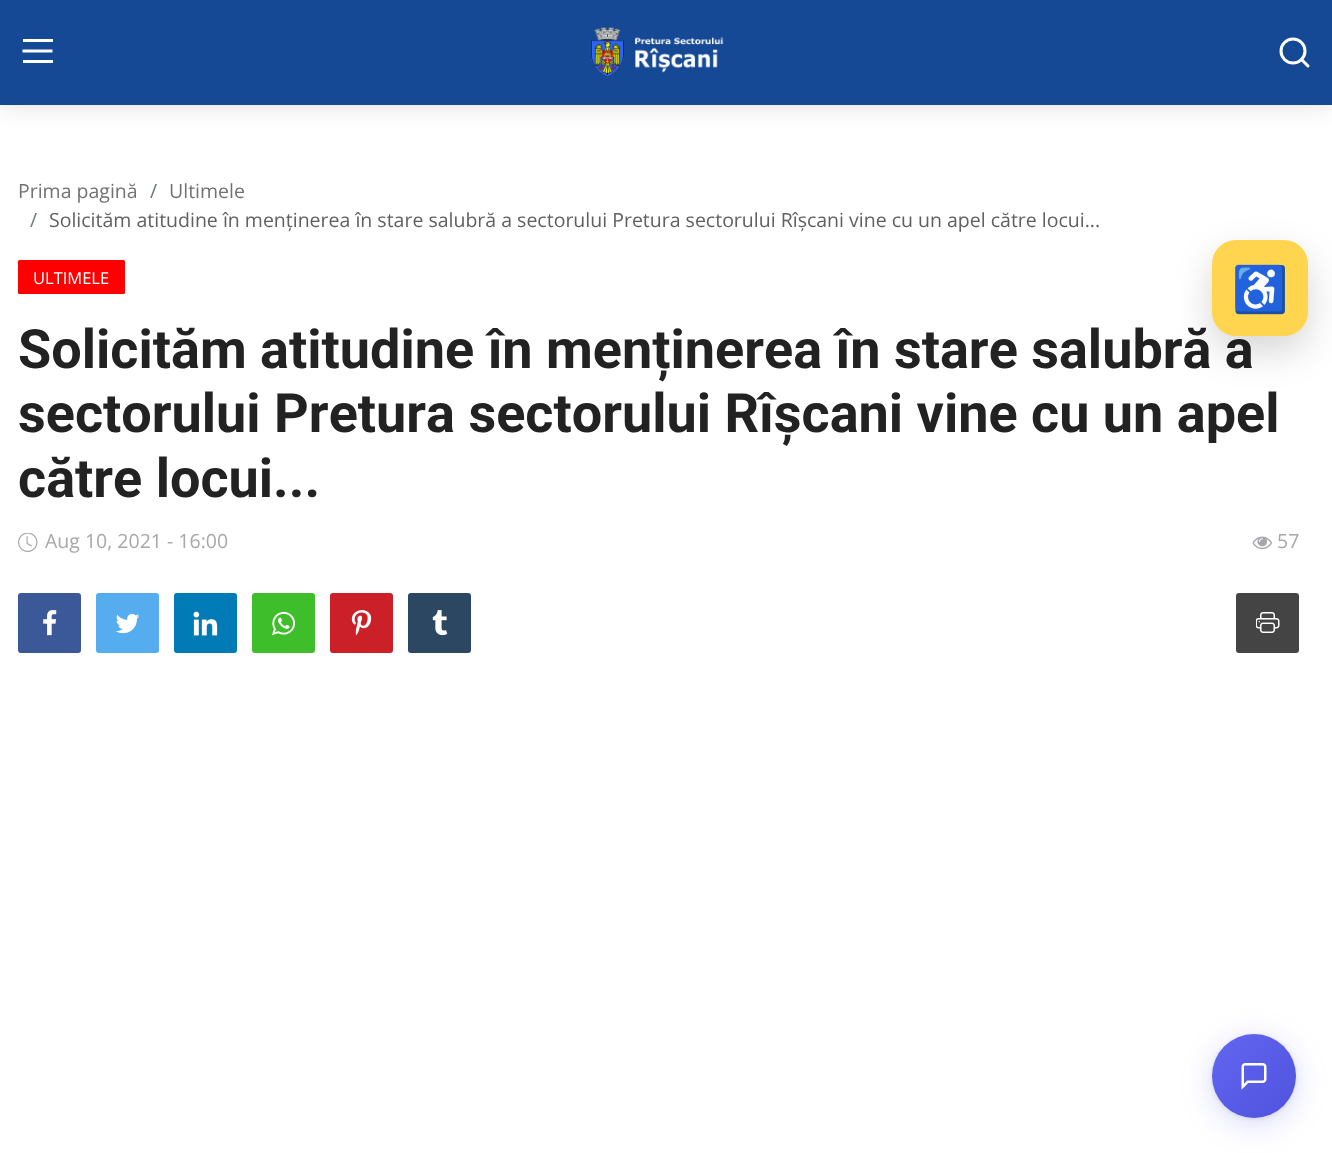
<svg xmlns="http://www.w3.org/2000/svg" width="1332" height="1153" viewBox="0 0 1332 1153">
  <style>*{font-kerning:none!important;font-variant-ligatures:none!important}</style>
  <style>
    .t1 { font: 19.5px Open Sans; fill: #727272; }
    .t2 { font: 19.5px Open Sans; fill: #6c757d; }
    .t3 { font: 19.5px Open Sans; fill: #606060; }
    .t4 { font: 16.5px Open Sans; fill: #fff; }
    .t5 { font: bold 54px Roboto; fill: #222; }
    .t6 { font: 19.5px Open Sans; fill: #a7a8ac; }
    .t7 { font: 45px Noto Color Emoji; fill: #222; }
  </style>
  <defs>
    <linearGradient id="g1" gradientUnits="userSpaceOnUse" x1="1212" y1="1034" x2="1296" y2="1118"><stop offset="0" stop-color="#6366f1"/><stop offset="1" stop-color="#4f52dd"/></linearGradient>
  </defs>
  <rect width="100%" height="100%" fill="#fff"/>
  <rect x="0" y="3" width="1332" height="105" fill="#0000001a" filter="blur(11px)"/>
  <rect x="0" y="0" width="1332" height="105" fill="#154995"/>
  <rect x="23" y="39" width="30" height="3" fill="#fff"/>
  <path d="M22.5 51H52.5" fill="none" stroke="#fff" stroke-width="3"/>
  <rect x="23" y="60" width="30" height="3" fill="#fff"/>
  <image x="591" y="27" width="133" height="51" href="images/1.png"/>
  <circle cx="1293" cy="51" r="12" fill="none" stroke="#fff" stroke-width="3"/>
  <path d="M1308 66L1301.5 59.5" fill="none" stroke="#fff" stroke-width="3" stroke-linecap="round" stroke-linejoin="round"/>
  <text x="18" y="198" class="t1">Prima pagină</text>
  <text x="150" y="198" class="t2">/</text>
  <text x="169" y="198" class="t1">Ultimele</text>
  <text x="30" y="227" class="t2">/</text>
  <text x="49" y="227" class="t3">Solicităm atitudine în menținerea în stare salubră a sectorului Pretura sectorului Rîșcani vine cu un apel către locui...</text>
  <rect x="18" y="260" width="107" height="34" rx="1.5" fill="#f00"/>
  <text x="33" y="284" class="t4">ULTIMELE</text>
  <text x="18" y="368" class="t5">Solicităm atitudine în menținerea în stare salubră a</text>
  <text x="18" y="432" class="t5">sectorului Pretura sectorului Rîșcani vine cu un apel</text>
  <text x="18" y="497" class="t5">către locui...</text>
  <image x="18" y="533" width="20" height="19" href="images/2.png"/>
  <text x="45" y="548" class="t6">Aug 10, 2021 - 16:00</text>
  <image x="1252" y="536" width="20" height="14" href="images/3.png"/>
  <text x="1277" y="548" class="t6">57</text>
  <rect x="18" y="593" width="63" height="60" rx="3" fill="#3b5998"/>
  <image x="43" y="610" width="14" height="26" href="images/4.png"/>
  <rect x="96" y="593" width="63" height="60" rx="3" fill="#55acee"/>
  <image x="115" y="613" width="25" height="21" href="images/5.png"/>
  <rect x="174" y="593" width="63" height="60" rx="3" fill="#007bb5"/>
  <image x="193" y="611" width="25" height="25" href="images/6.png"/>
  <rect x="252" y="593" width="63" height="60" rx="3" fill="#3ebe2b"/>
  <image x="272" y="611" width="24" height="25" href="images/7.png"/>
  <rect x="330" y="593" width="63" height="60" rx="3" fill="#cb2027"/>
  <image x="351" y="610" width="21" height="26" href="images/8.png"/>
  <rect x="408" y="593" width="63" height="60" rx="3" fill="#2c4762"/>
  <image x="432" y="610" width="16" height="26" href="images/9.png"/>
  <rect x="1236" y="593" width="63" height="60" rx="3" fill="#444"/>
  <image x="1256" y="612" width="24" height="21" href="images/10.png"/>
  <rect x="1212" y="255" width="96" height="96" rx="24" fill="#00000029" filter="blur(18px)"/>
  <rect x="1212" y="240" width="96" height="96" rx="24" fill="#ffd54f"/>
  <text x="1232" y="305" class="t7">♿</text>
  <rect x="1212" y="1035" width="84" height="84" rx="42" fill="#0000001a" filter="blur(2px)"/>
  <rect x="1212" y="1040" width="84" height="84" rx="42" fill="#6366f140" filter="blur(15px)"/>
  <circle cx="1254" cy="1076" r="42" fill="url(#g1)"/>
  <image x="1241" y="1063" width="26" height="27" href="images/11.png"/>
</svg>
